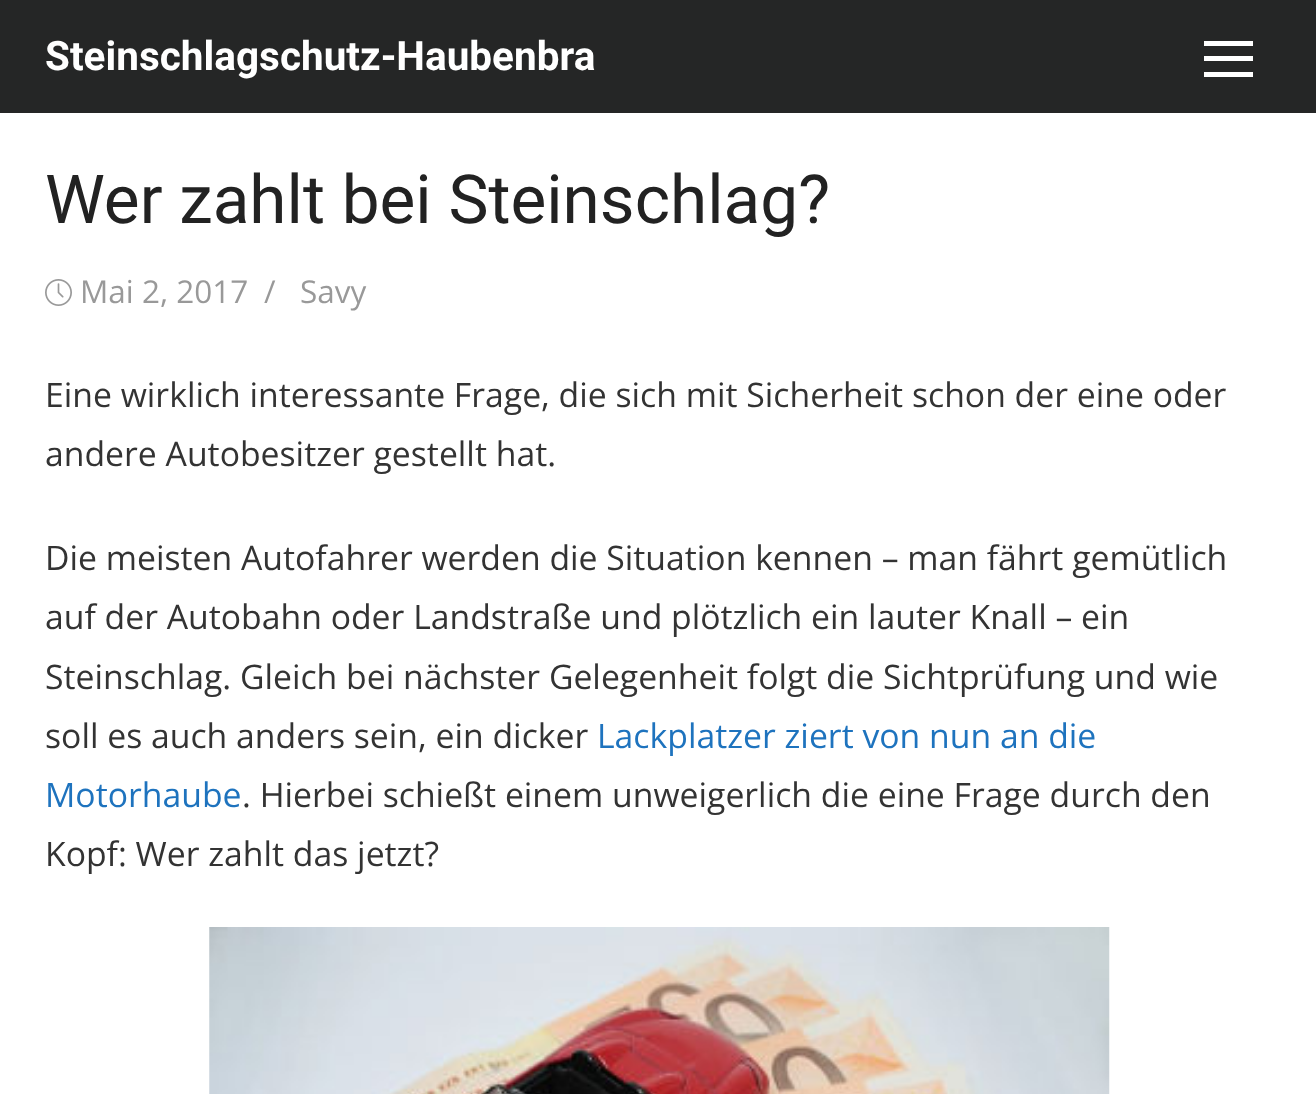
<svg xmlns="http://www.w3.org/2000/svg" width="1316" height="1094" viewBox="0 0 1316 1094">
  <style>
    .t1 { font: bold 40.5px Roboto; fill: #fff; }
    .t2 { font: 67.5px Roboto; fill: #222; }
    .t3 { font: 31.5px Open Sans; fill: #999; }
    .t4 { font: 33.75px Open Sans; fill: #333; }
    .t5 { font: 33.75px Open Sans; fill: #1e73be; }
  </style>
  <rect width="100%" height="100%" fill="#fff"/>
  <rect x="0" y="0" width="1316" height="113" fill="#252626"/>
  <text x="45" y="70" class="t1">Steinschlagschutz-Haubenbra</text>
  <rect x="1204" y="56" width="49" height="5" fill="#fff"/>
  <rect x="1204" y="41" width="49" height="5" fill="#fff"/>
  <rect x="1204" y="72" width="49" height="5" fill="#fff"/>
  <text x="45" y="223" class="t2">Wer zahlt bei Steinschlag?</text>
  <image x="45" y="279" width="27" height="27" href="images/1.png"/>
  <text x="80" y="303" class="t3">Mai 2, 2017</text>
  <text x="264" y="303" class="t3">/</text>
  <text x="300" y="303" class="t3">Savy</text>
  <text x="45" y="407" class="t4">Eine wirklich interessante Frage, die sich mit Sicherheit schon der eine oder</text>
  <text x="45" y="466" class="t4">andere Autobesitzer gestellt hat.</text>
  <text x="45" y="570" class="t4">Die meisten Autofahrer werden die Situation kennen – man fährt gemütlich</text>
  <text x="45" y="629" class="t4">auf der Autobahn oder Landstraße und plötzlich ein lauter Knall – ein</text>
  <text x="45" y="689" class="t4">Steinschlag. Gleich bei nächster Gelegenheit folgt die Sichtprüfung und wie</text>
  <text x="45" y="748" class="t4">soll es auch anders sein, ein dicker</text>
  <text x="597" y="748" class="t5">Lackplatzer ziert von nun an die</text>
  <text x="45" y="807" class="t5">Motorhaube</text>
  <text x="242" y="807" class="t4">. Hierbei schießt einem unweigerlich die eine Frage durch den</text>
  <text x="45" y="866" class="t4">Kopf: Wer zahlt das jetzt?</text>
  <image x="209" y="927" width="901" height="167" href="images/2.png"/>
</svg>
